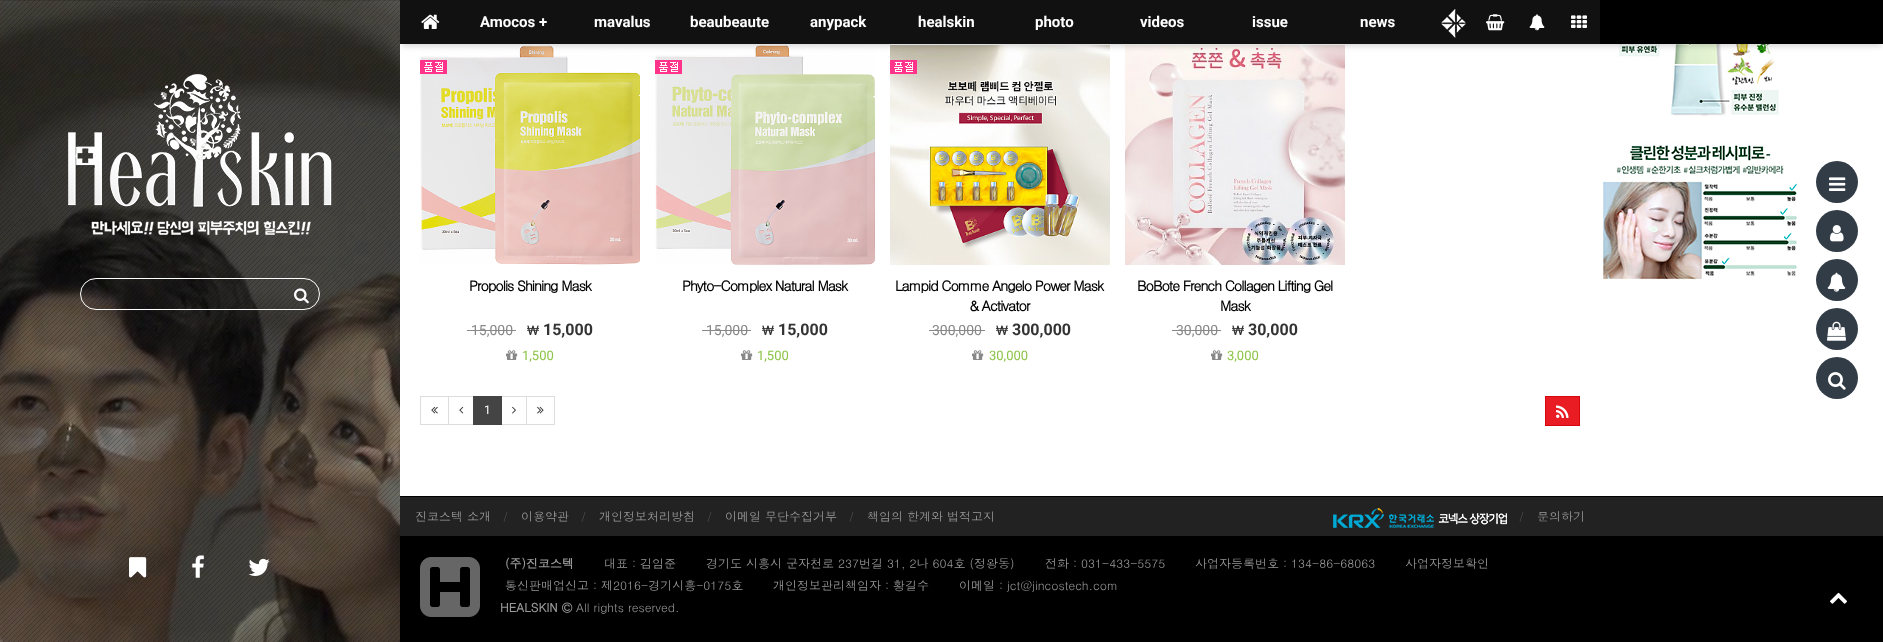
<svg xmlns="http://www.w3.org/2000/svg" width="1883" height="642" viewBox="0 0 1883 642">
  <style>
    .t1 { font: bold 15px Roboto; fill: #fff; }
    .t2 { font: bold 14px Dotum; letter-spacing: -1px; fill: #000; }
    .t3 { font: 14px Roboto; fill: #888; }
    .t4 { font: bold 16px Roboto; fill: #333; }
    .t5 { font: 13px Roboto; fill: #8cc346; }
    .t6 { font: 12px Roboto; fill: #fff; }
    .t7 { font: 12px Dotum; fill: #999; }
    .t8 { font: 12px Dotum; fill: #555; }
    .t9 { font: bold 12px Dotum; fill: #999; }
  </style>
  <rect width="100%" height="100%" fill="#fff"/>
  <image x="0" y="0" width="400" height="642" href="images/1.png"/>
  <image x="0" y="0" width="400" height="642" href="images/2.png"/>
  <image x="68" y="74" width="264" height="161" href="images/3.png"/>
  <rect x="80.5" y="278.5" width="239" height="31" rx="15.5" fill="none" stroke="#fff"/>
  <image x="294" y="288" width="15" height="16" href="images/4.png"/>
  <image x="129" y="557" width="18" height="21" href="images/5.png"/>
  <image x="192" y="555" width="12" height="23" href="images/6.png"/>
  <image x="248" y="558" width="22" height="18" href="images/7.png"/>
  <image x="1601" y="44" width="197" height="239" href="images/13.png"/>
  <image x="420" y="45" width="220" height="220" href="images/14.png"/>
  <image x="655" y="45" width="220" height="220" href="images/18.png"/>
  <image x="890" y="45" width="220" height="220" href="images/19.png"/>
  <image x="1125" y="45" width="220" height="220" href="images/20.png"/>
  <rect x="402" y="7" width="1479" height="40" fill="#19191926" filter="blur(2.5px)"/>
  <rect x="1600" y="0" width="283" height="44" fill="#000"/>
  <rect x="400" y="0" width="1200" height="44" fill="#111"/>
  <image x="421" y="14" width="19" height="15" href="images/8.png"/>
  <text x="480" y="27" class="t1">Amocos +</text>
  <text x="594" y="27" class="t1">mavalus</text>
  <text x="690" y="27" class="t1">beaubeaute</text>
  <text x="810" y="27" class="t1">anypack</text>
  <text x="918" y="27" class="t1">healskin</text>
  <text x="1035" y="27" class="t1">photo</text>
  <text x="1140" y="27" class="t1">videos</text>
  <text x="1252" y="27" class="t1">issue</text>
  <text x="1360" y="27" class="t1">news</text>
  <image x="1441" y="9" width="25" height="29" href="images/9.png"/>
  <image x="1486" y="14" width="19" height="17" href="images/10.png"/>
  <image x="1529" y="14" width="16" height="17" href="images/11.png"/>
  <image x="1571" y="15" width="16" height="13" href="images/12.png"/>
  <image x="420" y="60" width="27" height="14" href="images/15.png"/>
  <text x="469" y="291" class="t2">Propolis Shining Mask</text>
  <text x="471" y="335" class="t3">15,000</text>
  <rect x="467" y="330" width="49" height="1" fill="#888"/>
  <image x="527" y="325" width="12" height="10" href="images/16.png"/>
  <text x="543" y="335" class="t4">15,000</text>
  <image x="506" y="350" width="12" height="10" href="images/17.png"/>
  <text x="522" y="360" class="t5">1,500</text>
  <image x="655" y="60" width="27" height="14" href="images/15.png"/>
  <text x="682" y="291" class="t2">Phyto-Complex Natural Mask</text>
  <text x="706" y="335" class="t3">15,000</text>
  <rect x="702" y="330" width="49" height="1" fill="#888"/>
  <image x="762" y="325" width="12" height="10" href="images/16.png"/>
  <text x="778" y="335" class="t4">15,000</text>
  <image x="741" y="350" width="12" height="10" href="images/17.png"/>
  <text x="757" y="360" class="t5">1,500</text>
  <image x="890" y="60" width="27" height="14" href="images/15.png"/>
  <text x="895" y="291" class="t2">Lampid Comme Angelo Power Mask</text>
  <text x="969" y="311" class="t2">&amp; Activator</text>
  <text x="932" y="335" class="t3">300,000</text>
  <rect x="929" y="330" width="56" height="1" fill="#888"/>
  <image x="996" y="325" width="12" height="10" href="images/16.png"/>
  <text x="1012" y="335" class="t4">300,000</text>
  <image x="972" y="350" width="12" height="10" href="images/17.png"/>
  <text x="989" y="360" class="t5">30,000</text>
  <text x="1137" y="291" class="t2">BoBote French Collagen Lifting Gel</text>
  <text x="1220" y="311" class="t2">Mask</text>
  <text x="1176" y="335" class="t3">30,000</text>
  <rect x="1172" y="330" width="49" height="1" fill="#888"/>
  <image x="1232" y="325" width="12" height="10" href="images/16.png"/>
  <text x="1248" y="335" class="t4">30,000</text>
  <image x="1211" y="350" width="12" height="10" href="images/17.png"/>
  <text x="1227" y="360" class="t5">3,000</text>
  <rect x="420.5" y="396.5" width="28" height="28" fill="none" stroke="#ddd"/>
  <image x="431" y="406" width="7" height="8" href="images/21.png"/>
  <rect x="448.5" y="396.5" width="25" height="28" fill="none" stroke="#ddd"/>
  <image x="459" y="406" width="5" height="8" href="images/22.png"/>
  <rect x="501.5" y="396.5" width="25" height="28" fill="none" stroke="#ddd"/>
  <rect x="473" y="396" width="29" height="29" fill="#444"/>
  <text x="484" y="414" class="t6">1</text>
  <image x="512" y="406" width="4" height="8" href="images/23.png"/>
  <rect x="526.5" y="396.5" width="28" height="28" fill="none" stroke="#ddd"/>
  <image x="537" y="406" width="7" height="8" href="images/24.png"/>
  <rect x="1545.5" y="396.5" width="34" height="29" fill="#e91b23" stroke="#d5070f"/>
  <image x="1556" y="405" width="13" height="13" href="images/25.png"/>
  <rect x="400" y="536" width="1483" height="106" fill="#000"/>
  <rect x="400" y="497" width="1483" height="39" fill="#222"/>
  <rect x="400" y="496" width="1483" height="1" fill="#000"/>
  <text x="415" y="521" class="t7">진코스텍 소개</text>
  <text x="503" y="521" class="t8">/</text>
  <text x="521" y="521" class="t7">이용약관</text>
  <text x="581" y="521" class="t8">/</text>
  <text x="599" y="521" class="t7">개인정보처리방침</text>
  <text x="707" y="521" class="t8">/</text>
  <text x="725" y="521" class="t7">이메일 무단수집거부</text>
  <text x="849" y="521" class="t8">/</text>
  <text x="867" y="521" class="t7">책임의 한계와 법적고지</text>
  <image x="1333" y="508" width="174" height="20" href="images/26.png"/>
  <text x="1519" y="521" class="t8">/</text>
  <text x="1537" y="521" class="t7">문의하기</text>
  <image x="420" y="557" width="60" height="60" href="images/27.png"/>
  <text x="505" y="568" class="t9">(주)진코스텍</text>
  <text x="604" y="568" class="t7">대표 : 김임준</text>
  <text x="706" y="568" class="t7">경기도 시흥시 군자천로 237번길 31, 2나 604호 (정왕동)</text>
  <text x="1045" y="568" class="t7">전화 : 031-433-5575</text>
  <text x="1195" y="568" class="t7">사업자등록번호 : 134-86-68063</text>
  <text x="1405" y="568" class="t7">사업자정보확인</text>
  <text x="505" y="590" class="t7">통신판매업신고 : 제2016-경기시흥-0175호</text>
  <text x="773" y="590" class="t7">개인정보관리책임자 : 황길수</text>
  <text x="959" y="590" class="t7">이메일 : jct@jincostech.com</text>
  <text x="500" y="612" class="t9">HEALSKIN</text>
  <image x="562" y="602" width="11" height="11" href="images/28.png"/>
  <text x="576" y="612" class="t7">All rights reserved.</text>
  <circle cx="1837" cy="182" r="21" fill="#323c46"/>
  <image x="1829" y="177" width="17" height="14" href="images/29.png"/>
  <circle cx="1837" cy="231" r="21" fill="#323c46"/>
  <image x="1830" y="225" width="14" height="17" href="images/30.png"/>
  <circle cx="1837" cy="280" r="21" fill="#323c46"/>
  <image x="1827" y="272" width="19" height="20" href="images/31.png"/>
  <circle cx="1837" cy="329" r="21" fill="#323c46"/>
  <image x="1827" y="321" width="19" height="20" href="images/32.png"/>
  <circle cx="1837" cy="378" r="21" fill="#323c46"/>
  <image x="1828" y="372" width="18" height="18" href="images/33.png"/>
  <image x="1830" y="592" width="17" height="12" href="images/34.png"/>
</svg>
